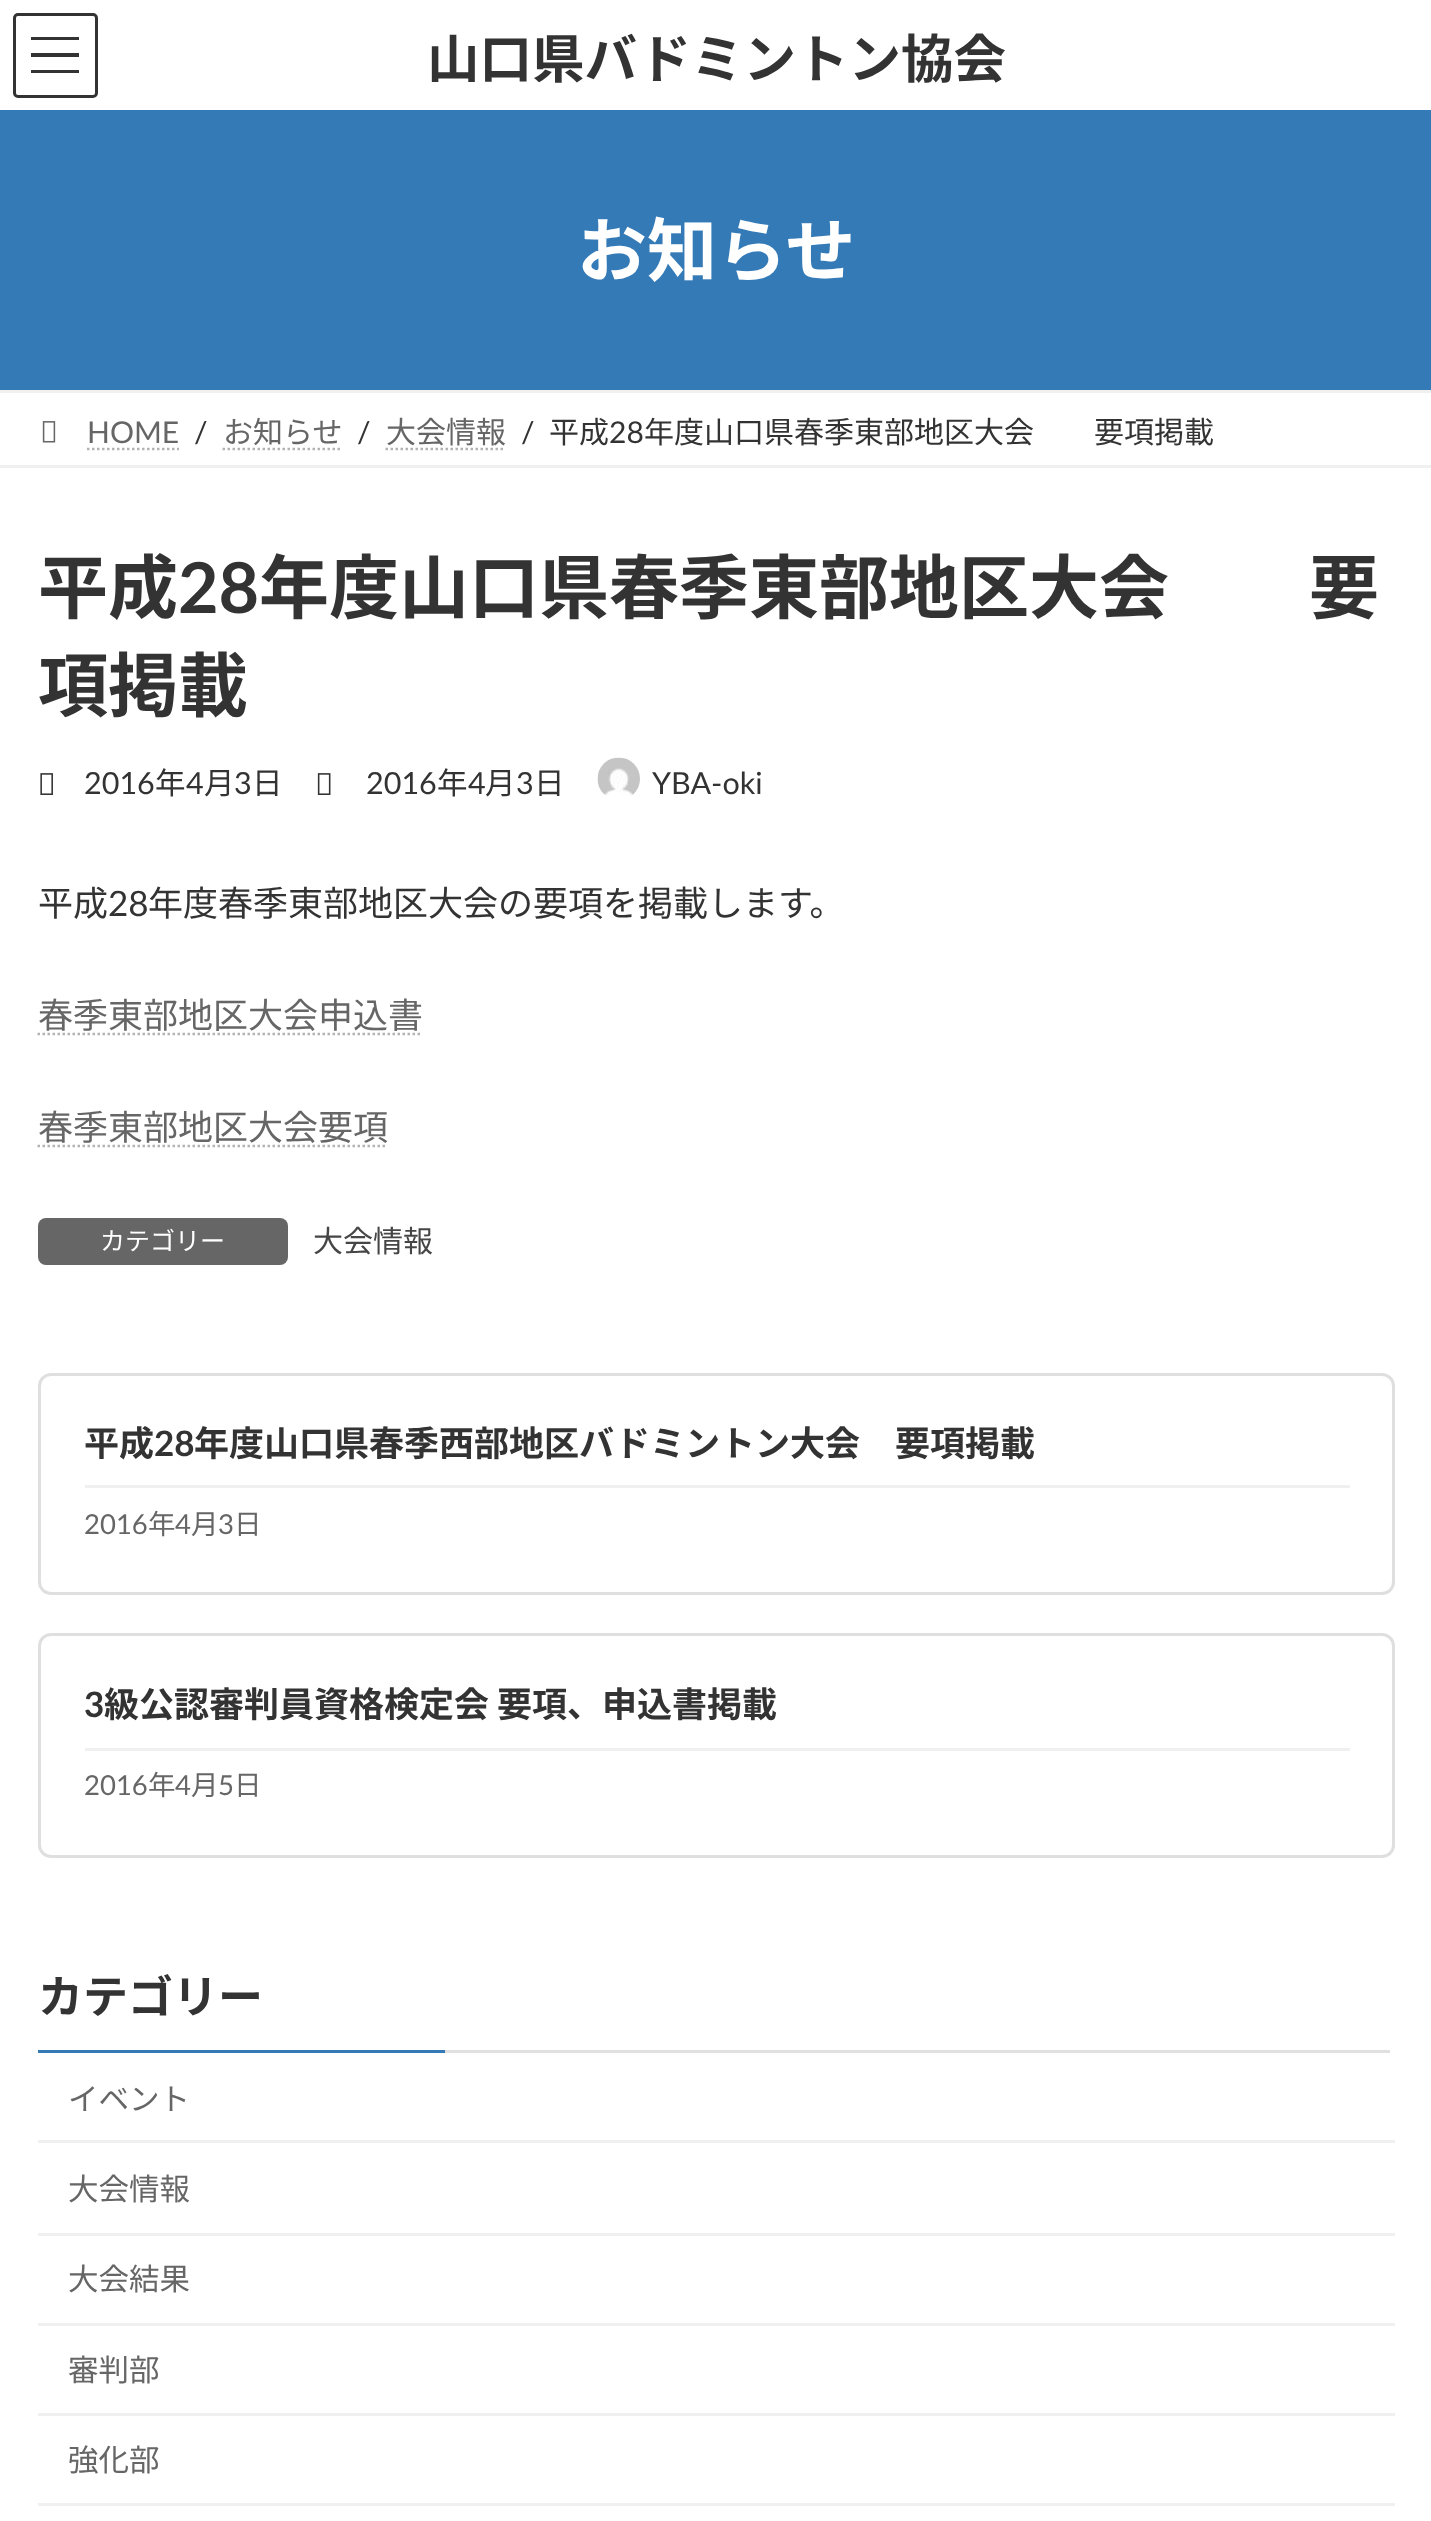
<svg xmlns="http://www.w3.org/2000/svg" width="1431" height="2521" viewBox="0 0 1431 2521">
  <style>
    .t1 { font: bold 52.5px Noto Sans JP; fill: #333; }
    .t2 { font: bold 70px Noto Sans JP; fill: #fff; }
    .t3 { font: 30px Lato; fill: #666; }
    .t4 { font: 30px Lato; fill: #333; }
    .t5 { font: 30px Noto Sans JP; fill: #666; }
    .t6 { font: 30px Noto Sans JP; fill: #333; }
    .t7 { font: bold 70px Noto Sans JP; fill: #333; }
    .t8 { font: bold 70px Lato; fill: #333; }
    .t9 { font: 30.5px Lato; fill: #333; }
    .t10 { font: 30.5px Noto Sans JP; fill: #333; }
    .t11 { font: 35px Noto Sans JP; fill: #333; }
    .t12 { font: 35px Lato; fill: #333; }
    .t13 { font: 35px Noto Sans JP; fill: #666; }
    .t14 { font: 25px Noto Sans JP; fill: #fff; }
    .t15 { font: 30px Noto Sans JP; fill: #464646; }
    .t16 { font: bold 35px Noto Sans JP; fill: #333; }
    .t17 { font: bold 35px Lato; fill: #333; }
    .t18 { font: 27.5px Lato; fill: #666; }
    .t19 { font: 27.5px Noto Sans JP; fill: #666; }
    .t20 { font: bold 45px Noto Sans JP; fill: #333; }
    .t21 { font: 30.5px Noto Sans JP; fill: #666; }
  </style>
  <rect width="100%" height="100%" fill="#fff"/>
  <rect x="31" y="37" width="48" height="3" fill="#333"/>
  <rect x="31" y="53" width="48" height="4" fill="#333"/>
  <rect x="31" y="70" width="48" height="3" fill="#333"/>
  <rect x="14.5" y="14.5" width="82" height="82" rx="3.5" fill="none" stroke="#333" stroke-width="3"/>
  <text x="427" y="78" class="t1">山口県バドミントン協会</text>
  <rect x="0" y="110" width="1431" height="280" fill="#337ab7"/>
  <text x="577" y="276" class="t2">お知らせ</text>
  <rect x="0" y="390" width="1431" height="3" fill="#f0f0f0"/>
  <rect x="0" y="465" width="1431" height="3" fill="#f0f0f0"/>
  <image x="42" y="421" width="14" height="22" href="images/1.png"/>
  <text x="87" y="443" class="t3">HOME</text>
  <path d="M87 449H179" fill="none" stroke="#b3b3b3" stroke-width="2.5" stroke-dasharray="2.5 2.5"/>
  <text x="194" y="443" class="t4">/</text>
  <text x="223" y="443" class="t5">お知らせ</text>
  <path d="M222.5 449H342" fill="none" stroke="#b3b3b3" stroke-width="2.5" stroke-dasharray="2.5 2.5"/>
  <text x="357" y="443" class="t4">/</text>
  <text x="386" y="443" class="t5">大会情報</text>
  <path d="M385.5 449H505.5" fill="none" stroke="#b3b3b3" stroke-width="2.5" stroke-dasharray="2.5 2.5"/>
  <text x="521" y="443" class="t4">/</text>
  <text x="549" y="443" class="t6">平成</text>
  <text x="609" y="443" class="t4">28</text>
  <text x="644" y="443" class="t6">年度山口県春季東部地区大会　　要項掲載</text>
  <text x="38" y="613" class="t7">平成</text>
  <text x="178" y="613" class="t8">28</text>
  <text x="259" y="613" class="t7">年度山口県春季東部地区大会　　要</text>
  <text x="38" y="711" class="t7">項掲載</text>
  <image x="40" y="773" width="13" height="22" href="images/2.png"/>
  <text x="84" y="794" class="t9">2016</text>
  <text x="155" y="794" class="t10">年</text>
  <text x="186" y="794" class="t9">4</text>
  <text x="204" y="794" class="t10">月</text>
  <text x="234" y="794" class="t9">3</text>
  <text x="252" y="794" class="t10">日</text>
  <image x="317" y="773" width="14" height="22" href="images/3.png"/>
  <text x="366" y="794" class="t9">2016</text>
  <text x="437" y="794" class="t10">年</text>
  <text x="468" y="794" class="t9">4</text>
  <text x="485" y="794" class="t10">月</text>
  <text x="516" y="794" class="t9">3</text>
  <text x="534" y="794" class="t10">日</text>
  <image x="597" y="757" width="43" height="39" href="images/4.png"/>
  <text x="652" y="794" class="t9">YBA-oki</text>
  <text x="38" y="916" class="t11">平成</text>
  <text x="108" y="916" class="t12">28</text>
  <text x="148" y="916" class="t11">年度春季東部地区大会の要項を掲載します。</text>
  <text x="38" y="1028" class="t13">春季東部地区大会申込書</text>
  <path d="M37.5 1034H422.5" fill="none" stroke="#b3b3b3" stroke-width="2.5" stroke-dasharray="2.5 2.5"/>
  <text x="38" y="1140" class="t13">春季東部地区大会要項</text>
  <path d="M37.5 1146H387.5" fill="none" stroke="#b3b3b3" stroke-width="2.5" stroke-dasharray="2.5 2.5"/>
  <rect x="38" y="1218" width="250" height="47" rx="8" fill="#666"/>
  <text x="100" y="1250" class="t14">カテゴリー</text>
  <text x="313" y="1252" class="t15">大会情報</text>
  <rect x="39.5" y="1374.5" width="1354" height="219" rx="11.5" fill="none" stroke="#dfdfdf" stroke-width="3"/>
  <rect x="85" y="1485" width="1265" height="3" fill="#f0f0f0"/>
  <text x="84" y="1456" class="t16">平成</text>
  <text x="154" y="1456" class="t17">28</text>
  <text x="194" y="1456" class="t16">年度山口県春季西部地区バドミントン大会　要項掲載</text>
  <text x="84" y="1534" class="t18">2016</text>
  <text x="148" y="1534" class="t19">年</text>
  <text x="175" y="1534" class="t18">4</text>
  <text x="191" y="1534" class="t19">月</text>
  <text x="218" y="1534" class="t18">3</text>
  <text x="234" y="1534" class="t19">日</text>
  <rect x="39.5" y="1634.5" width="1354" height="222" rx="11.5" fill="none" stroke="#dfdfdf" stroke-width="3"/>
  <rect x="85" y="1748" width="1265" height="3" fill="#f0f0f0"/>
  <text x="84" y="1717" class="t17">3</text>
  <text x="104" y="1717" class="t16">級公認審判員資格検定会 要項、申込書掲載</text>
  <text x="84" y="1795" class="t18">2016</text>
  <text x="148" y="1795" class="t19">年</text>
  <text x="175" y="1795" class="t18">4</text>
  <text x="191" y="1795" class="t19">月</text>
  <text x="218" y="1795" class="t18">5</text>
  <text x="234" y="1795" class="t19">日</text>
  <rect x="445" y="2050" width="945" height="3" fill="#e0e0e0"/>
  <text x="38" y="2013" class="t20">カテゴリー</text>
  <rect x="38" y="2050" width="407" height="3" fill="#337ab7"/>
  <rect x="38" y="2140" width="1357" height="3" fill="#f0f0f0"/>
  <text x="68" y="2110" class="t21">イベント</text>
  <rect x="38" y="2233" width="1357" height="3" fill="#f0f0f0"/>
  <text x="68" y="2200" class="t21">大会情報</text>
  <rect x="38" y="2323" width="1357" height="3" fill="#f0f0f0"/>
  <text x="68" y="2290" class="t21">大会結果</text>
  <rect x="38" y="2413" width="1357" height="3" fill="#f0f0f0"/>
  <text x="68" y="2381" class="t21">審判部</text>
  <rect x="38" y="2503" width="1357" height="3" fill="#f0f0f0"/>
  <text x="68" y="2471" class="t21">強化部</text>
</svg>
